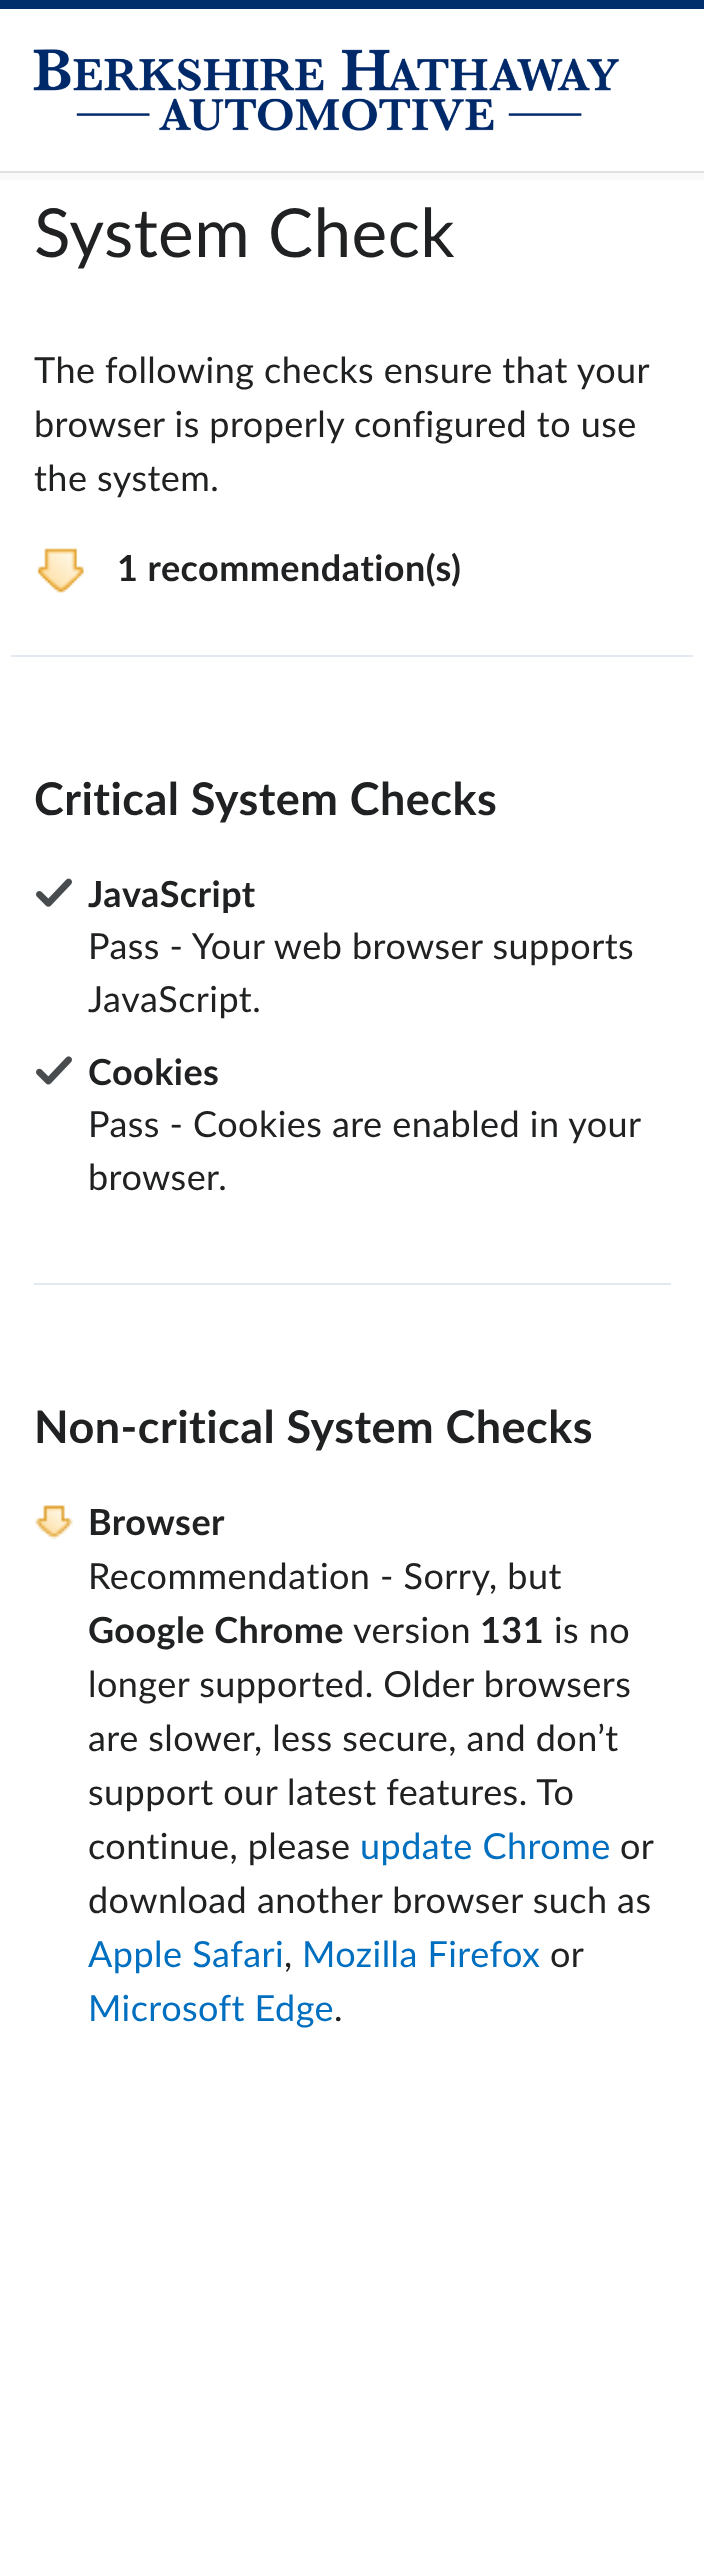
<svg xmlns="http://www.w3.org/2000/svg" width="704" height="2563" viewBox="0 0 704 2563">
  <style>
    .t1 { font: 67.5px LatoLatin; letter-spacing: 0.45px; fill: #202122; }
    .t2 { font: 36px LatoLatin; letter-spacing: 0.45px; fill: #202122; }
    .t3 { font: bold 36px LatoLatin; letter-spacing: 0.45px; fill: #202122; }
    .t4 { font: bold 45px LatoLatin; letter-spacing: 0.45px; fill: #202122; }
    .t5 { font: 36px LatoLatin; letter-spacing: 0.45px; fill: #006fbf; }
  </style>
  <rect width="100%" height="100%" fill="#fff"/>
  <rect x="0" y="173" width="704" height="7" fill="#fafafa"/>
  <rect x="0" y="171" width="704" height="2" fill="#e0e1e2"/>
  <rect x="0" y="0" width="704" height="9" fill="#002d6b"/>
  <image x="33" y="49" width="586" height="82" href="images/1.png"/>
  <text x="34" y="257" class="t1">System Check</text>
  <text x="34" y="383" class="t2">The following checks ensure that your</text>
  <text x="34" y="437" class="t2">browser is properly configured to use</text>
  <text x="34" y="491" class="t2">the system.</text>
  <image x="37" y="548" width="47" height="45" href="images/2.png"/>
  <text x="117" y="581" class="t3">1 recommendation(s)</text>
  <rect x="11" y="655" width="682" height="2" fill="#e3e9f1"/>
  <text x="34" y="815" class="t4">Critical System Checks</text>
  <image x="36" y="878" width="36" height="29" href="images/3.png"/>
  <text x="88" y="907" class="t3">JavaScript</text>
  <text x="88" y="959" class="t2">Pass - Your web browser supports</text>
  <text x="88" y="1012" class="t2">JavaScript.</text>
  <image x="36" y="1056" width="36" height="29" href="images/4.png"/>
  <text x="88" y="1085" class="t3">Cookies</text>
  <text x="88" y="1137" class="t2">Pass - Cookies are enabled in your</text>
  <text x="88" y="1190" class="t2">browser.</text>
  <rect x="34" y="1283" width="637" height="2" fill="#e3e9f1"/>
  <text x="34" y="1443" class="t4">Non-critical System Checks</text>
  <image x="35" y="1505" width="38" height="35" href="images/5.png"/>
  <text x="88" y="1535" class="t3">Browser</text>
  <text x="88" y="1589" class="t2">Recommendation - Sorry, but</text>
  <text x="88" y="1643" class="t3">Google Chrome</text>
  <text x="353" y="1643" class="t2">version</text>
  <text x="480" y="1643" class="t3">131</text>
  <text x="554" y="1643" class="t2">is no</text>
  <text x="88" y="1697" class="t2">longer supported. Older browsers</text>
  <text x="88" y="1751" class="t2">are slower, less secure, and don’t</text>
  <text x="88" y="1805" class="t2">support our latest features. To</text>
  <text x="88" y="1859" class="t2">continue, please</text>
  <text x="360" y="1859" class="t5">update Chrome</text>
  <text x="620" y="1859" class="t2">or</text>
  <text x="88" y="1913" class="t2">download another browser such as</text>
  <text x="88" y="1967" class="t5">Apple Safari</text>
  <text x="284" y="1967" class="t2">,</text>
  <text x="302" y="1967" class="t5">Mozilla Firefox</text>
  <text x="550" y="1967" class="t2">or</text>
  <text x="88" y="2021" class="t5">Microsoft Edge</text>
  <text x="334" y="2021" class="t2">.</text>
</svg>
